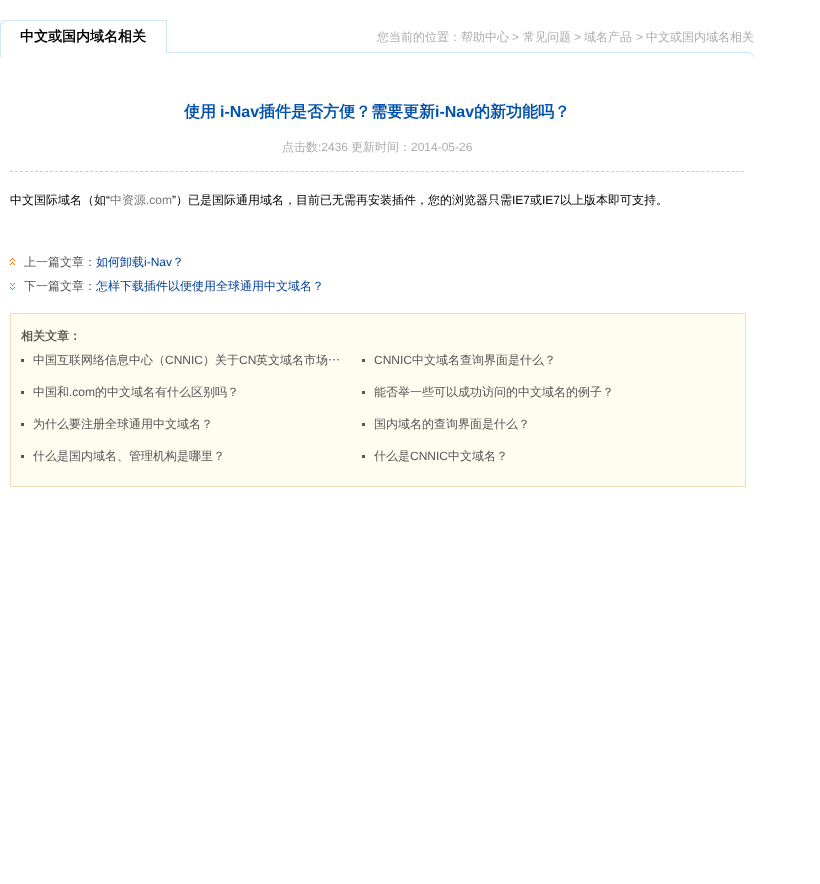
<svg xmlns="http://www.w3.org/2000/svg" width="820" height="884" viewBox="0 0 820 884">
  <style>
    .t1 { font: bold 14px WenQuanYi Zen Hei; fill: #000; }
    .t2 { font: 500 12px WenQuanYi Zen Hei; fill: #adadad; }
    .t3 { font: 12px Liberation Sans; fill: #adadad; }
    .t4 { font: bold 16px WenQuanYi Zen Hei; fill: #0252a9; }
    .t5 { font: bold 16px Liberation Sans; fill: #0252a9; }
    .t6 { font: 500 12px WenQuanYi Zen Hei; fill: #000; }
    .t7 { font: 12px Liberation Sans; fill: #000; }
    .t8 { font: 500 12px WenQuanYi Zen Hei; fill: #7a7a7a; }
    .t9 { font: 12px Liberation Sans; fill: #7a7a7a; }
    .t10 { font: 500 12px WenQuanYi Zen Hei; fill: #555; }
    .t11 { font: 500 12px WenQuanYi Zen Hei; fill: #003f98; }
    .t12 { font: 12px Liberation Sans; fill: #003f98; }
    .t13 { font: bold 12px WenQuanYi Zen Hei; fill: #555; }
    .t14 { font: 12px Liberation Sans; fill: #555; }
  </style>
  <rect width="100%" height="100%" fill="#fff"/>
  <image x="0" y="52" width="754" height="5" href="images/1.png"/>
  <image x="0" y="20" width="6" height="35" href="images/2.png"/>
  <rect x="6" y="52" width="160" height="1" fill="#fff"/>
  <rect x="6" y="20" width="161" height="1" fill="#cee4f6"/>
  <rect x="166" y="20" width="1" height="33" fill="#cee4f6"/>
  <text x="20" y="41" class="t1">中文或国内域名相关</text>
  <text x="377" y="41" class="t2">您当前的位置：帮助中心</text>
  <text x="512" y="41" class="t3">&gt;</text>
  <text x="523" y="41" class="t2">常见问题</text>
  <text x="574" y="41" class="t3">&gt;</text>
  <text x="584" y="41" class="t2">域名产品</text>
  <text x="636" y="41" class="t3">&gt;</text>
  <text x="646" y="41" class="t2">中文或国内域名相关</text>
  <text x="184" y="117" class="t4">使用</text>
  <text x="220" y="117" class="t5">i-Nav</text>
  <text x="259" y="117" class="t4">插件是否方便？需要更新</text>
  <text x="435" y="117" class="t5">i-Nav</text>
  <text x="474" y="117" class="t4">的新功能吗？</text>
  <path d="M10 171.5H744" fill="none" stroke="#ccc" stroke-dasharray="3 2.01"/>
  <text x="282" y="151" class="t2">点击数</text>
  <text x="318" y="151" class="t3">:2436</text>
  <text x="351" y="151" class="t2">更新时间：</text>
  <text x="411" y="151" class="t3">2014-05-26</text>
  <text x="10" y="204" class="t6">中文国际域名（如</text>
  <text x="106" y="204" class="t7">“</text>
  <text x="110" y="204" class="t8">中资源</text>
  <text x="146" y="204" class="t9">.com</text>
  <text x="172" y="204" class="t7">”</text>
  <text x="176" y="204" class="t6">）已是国际通用域名，目前已无需再安装插件，您的浏览器只需</text>
  <text x="512" y="204" class="t7">IE7</text>
  <text x="530" y="204" class="t6">或</text>
  <text x="542" y="204" class="t7">IE7</text>
  <text x="560" y="204" class="t6">以上版本即可支持。</text>
  <image x="10" y="258" width="5" height="7" href="images/3.png"/>
  <text x="24" y="266" class="t10">上一篇文章：</text>
  <text x="96" y="266" class="t11">如何卸载</text>
  <text x="144" y="266" class="t12">i-Nav</text>
  <text x="172" y="266" class="t11">？</text>
  <image x="10" y="283" width="5" height="7" href="images/4.png"/>
  <text x="24" y="290" class="t10">下一篇文章：</text>
  <text x="96" y="290" class="t11">怎样下载插件以便使用全球通用中文域名？</text>
  <rect x="10.5" y="313.5" width="735" height="173" fill="#fffcf0" stroke="#f4dbb8"/>
  <text x="21" y="340" class="t13">相关文章：</text>
  <rect x="21" y="359" width="3" height="3" fill="#545454"/>
  <text x="33" y="364" class="t10">中国互联网络信息中心（</text>
  <text x="165" y="364" class="t14">CNNIC</text>
  <text x="203" y="364" class="t10">）关于</text>
  <text x="239" y="364" class="t14">CN</text>
  <text x="256" y="364" class="t10">英文域名市场…</text>
  <rect x="362" y="359" width="3" height="3" fill="#545454"/>
  <text x="374" y="364" class="t14">CNNIC</text>
  <text x="412" y="364" class="t10">中文域名查询界面是什么？</text>
  <rect x="21" y="391" width="3" height="3" fill="#545454"/>
  <text x="33" y="396" class="t10">中国和</text>
  <text x="69" y="396" class="t14">.com</text>
  <text x="95" y="396" class="t10">的中文域名有什么区别吗？</text>
  <rect x="362" y="391" width="3" height="3" fill="#545454"/>
  <text x="374" y="396" class="t10">能否举一些可以成功访问的中文域名的例子？</text>
  <rect x="21" y="423" width="3" height="3" fill="#545454"/>
  <text x="33" y="428" class="t10">为什么要注册全球通用中文域名？</text>
  <rect x="362" y="423" width="3" height="3" fill="#545454"/>
  <text x="374" y="428" class="t10">国内域名的查询界面是什么？</text>
  <rect x="21" y="455" width="3" height="3" fill="#545454"/>
  <text x="33" y="460" class="t10">什么是国内域名、管理机构是哪里？</text>
  <rect x="362" y="455" width="3" height="3" fill="#545454"/>
  <text x="374" y="460" class="t10">什么是</text>
  <text x="410" y="460" class="t14">CNNIC</text>
  <text x="448" y="460" class="t10">中文域名？</text>
</svg>
